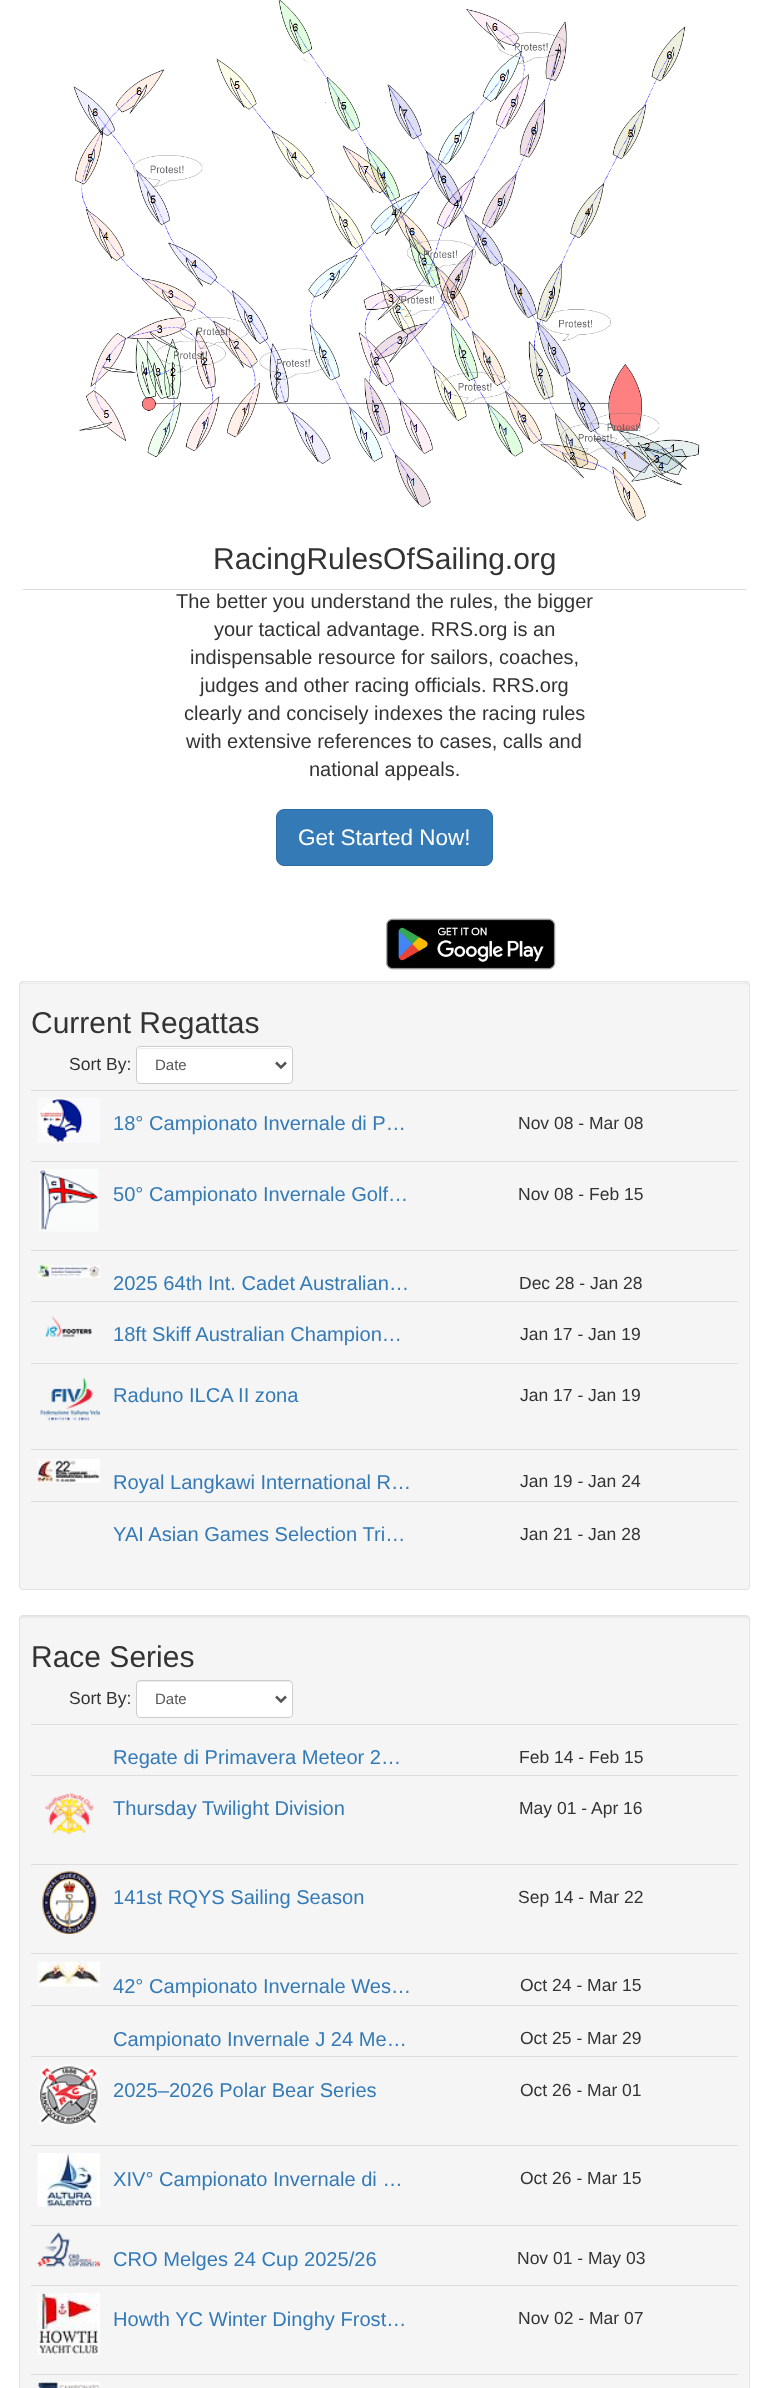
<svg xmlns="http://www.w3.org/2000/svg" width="768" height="2388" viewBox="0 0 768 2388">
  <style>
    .t1 { font: 30px Liberation Sans; fill: #333; }
    .t2 { font: 20px Liberation Sans; fill: #333; }
    .t3 { font: 22.5px Liberation Sans; fill: #fff; }
    .t4 { font: 17.5px Liberation Sans; fill: #333; }
    .t5 { font: 15px Liberation Sans; fill: #555; }
    .t6 { font: 20.1px Liberation Sans; fill: #337ab7; }
  </style>
  <rect width="100%" height="100%" fill="#fff"/>
  <rect x="23" y="589" width="723" height="1" fill="#ddd"/>
  <image x="73" y="0" width="627" height="521" href="images/1.png"/>
  <text x="213" y="569" class="t1">RacingRulesOfSailing.org</text>
  <text x="176" y="608" class="t2">The better you understand the rules, the bigger</text>
  <text x="214" y="636" class="t2">your tactical advantage. RRS.org is an</text>
  <text x="190" y="664" class="t2">indispensable resource for sailors, coaches,</text>
  <text x="200" y="692" class="t2">judges and other racing officials. RRS.org</text>
  <text x="184" y="720" class="t2">clearly and concisely indexes the racing rules</text>
  <text x="186" y="748" class="t2">with extensive references to cases, calls and</text>
  <text x="309" y="776" class="t2">national appeals.</text>
  <rect x="276.5" y="809.5" width="216" height="56" rx="7.5" fill="#337ab7" stroke="#2e6da4"/>
  <text x="298" y="845" class="t3">Get Started Now!</text>
  <image x="385" y="918" width="171" height="52" href="images/2.png"/>
  <rect x="19" y="981" width="731" height="609" rx="4" fill="#f5f5f5"/>
  <path d="M22 984H746C748 984 749 985 749 986C749 984 748 983 746 983H22C21 983 20 984 20 986C20 985 21 984 22 984Z" fill="#e9e9e9"/>
  <rect x="19.5" y="981.5" width="730" height="608" rx="3.5" fill="none" stroke="#e3e3e3"/>
  <text x="31" y="1033" class="t1">Current Regattas</text>
  <text x="69" y="1070" class="t4">Sort By:</text>
  <rect x="136" y="1046" width="157" height="38" rx="4" fill="#fff"/>
  <path d="M140 1049H289C290 1049 291 1050 291 1051C291 1049 290 1048 288 1048H140C139 1048 138 1049 138 1051C138 1050 139 1049 140 1049Z" fill="#ececec"/>
  <rect x="136.5" y="1046.5" width="156" height="37" rx="3.5" fill="none" stroke="#ccc"/>
  <path d="M276 1062.5L281 1067.5L286 1062.5" fill="none" stroke="#555" stroke-width="2.5"/>
  <text x="155" y="1070" class="t5">Date</text>
  <image x="37" y="1098" width="63" height="45" href="images/3.png"/>
  <text x="113" y="1130" class="t6">18° Campionato Invernale di P…</text>
  <rect x="31" y="1090" width="707" height="1" fill="#ddd"/>
  <text x="518" y="1129" class="t4">Nov 08 - Mar 08</text>
  <image x="39" y="1169" width="60" height="63" href="images/4.png"/>
  <text x="113" y="1201" class="t6">50° Campionato Invernale Golf…</text>
  <rect x="31" y="1161" width="707" height="1" fill="#ddd"/>
  <text x="518" y="1200" class="t4">Nov 08 - Feb 15</text>
  <image x="37" y="1265" width="63" height="13" href="images/5.png"/>
  <text x="113" y="1290" class="t6">2025 64th Int. Cadet Australian…</text>
  <rect x="31" y="1250" width="707" height="1" fill="#ddd"/>
  <text x="519" y="1289" class="t4">Dec 28 - Jan 28</text>
  <image x="45" y="1316" width="48" height="22" href="images/6.png"/>
  <text x="113" y="1341" class="t6">18ft Skiff Australian Champion…</text>
  <rect x="31" y="1301" width="707" height="1" fill="#ddd"/>
  <text x="520" y="1340" class="t4">Jan 17 - Jan 19</text>
  <image x="40" y="1377" width="60" height="44" href="images/7.png"/>
  <text x="113" y="1402" class="t6">Raduno ILCA II zona</text>
  <rect x="31" y="1363" width="707" height="1" fill="#ddd"/>
  <text x="520" y="1401" class="t4">Jan 17 - Jan 19</text>
  <image x="37" y="1459" width="63" height="24" href="images/8.png"/>
  <text x="113" y="1489" class="t6">Royal Langkawi International R…</text>
  <rect x="31" y="1449" width="707" height="1" fill="#ddd"/>
  <text x="520" y="1487" class="t4">Jan 19 - Jan 24</text>
  <text x="113" y="1541" class="t6">YAI Asian Games Selection Tri…</text>
  <rect x="31" y="1501" width="707" height="1" fill="#ddd"/>
  <text x="520" y="1540" class="t4">Jan 21 - Jan 28</text>
  <rect x="19" y="1615" width="731" height="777" rx="4" fill="#f5f5f5"/>
  <path d="M22 1618H746C748 1618 749 1619 749 1620V1618C749 1617 748 1616 746 1616H22C21 1616 20 1617 20 1618V1620C20 1619 21 1618 22 1618Z" fill="#e9e9e9"/>
  <rect x="19.5" y="1615.5" width="730" height="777" rx="3.5" fill="none" stroke="#e3e3e3"/>
  <text x="31" y="1667" class="t1">Race Series</text>
  <text x="69" y="1704" class="t4">Sort By:</text>
  <rect x="136" y="1680" width="157" height="38" rx="4" fill="#fff"/>
  <path d="M140 1682H289C290 1682 291 1684 291 1685C291 1683 291 1681 289 1681H140C138 1681 138 1683 138 1685C138 1684 139 1682 140 1682Z" fill="#ececec"/>
  <rect x="136.5" y="1680.5" width="156" height="37" rx="3.5" fill="none" stroke="#ccc"/>
  <path d="M276 1696.5L281 1701.5L286 1696.5" fill="none" stroke="#555" stroke-width="2.5"/>
  <text x="155" y="1704" class="t5">Date</text>
  <text x="113" y="1764" class="t6">Regate di Primavera Meteor 2…</text>
  <rect x="31" y="1724" width="707" height="1" fill="#ddd"/>
  <text x="519" y="1763" class="t4">Feb 14 - Feb 15</text>
  <image x="45" y="1792" width="49" height="43" href="images/9.png"/>
  <text x="113" y="1815" class="t6">Thursday Twilight Division</text>
  <rect x="31" y="1775" width="707" height="1" fill="#ddd"/>
  <text x="519" y="1814" class="t4">May 01 -</text>
  <text x="591" y="1814" class="t4">Apr 16</text>
  <image x="42" y="1871" width="55" height="63" href="images/10.png"/>
  <text x="113" y="1904" class="t6">141st RQYS Sailing Season</text>
  <rect x="31" y="1864" width="707" height="1" fill="#ddd"/>
  <text x="518" y="1903" class="t4">Sep 14 - Mar 22</text>
  <image x="37" y="1961" width="63" height="26" href="images/11.png"/>
  <text x="113" y="1993" class="t6">42° Campionato Invernale Wes…</text>
  <rect x="31" y="1953" width="707" height="1" fill="#ddd"/>
  <text x="520" y="1991" class="t4">Oct 24 - Mar 15</text>
  <text x="113" y="2046" class="t6">Campionato Invernale J 24 Me…</text>
  <rect x="31" y="2005" width="707" height="1" fill="#ddd"/>
  <text x="520" y="2044" class="t4">Oct 25 - Mar 29</text>
  <image x="38" y="2064" width="62" height="62" href="images/12.png"/>
  <text x="113" y="2097" class="t6">2025–2026 Polar Bear Series</text>
  <rect x="31" y="2056" width="707" height="1" fill="#ddd"/>
  <text x="520" y="2096" class="t4">Oct 26 - Mar 01</text>
  <image x="37" y="2153" width="63" height="54" href="images/13.png"/>
  <text x="113" y="2186" class="t6">XIV° Campionato Invernale di …</text>
  <rect x="31" y="2145" width="707" height="1" fill="#ddd"/>
  <text x="520" y="2184" class="t4">Oct 26 - Mar 15</text>
  <image x="37" y="2232" width="63" height="35" href="images/14.png"/>
  <text x="113" y="2266" class="t6">CRO Melges 24 Cup 2025/26</text>
  <rect x="31" y="2225" width="707" height="1" fill="#ddd"/>
  <text x="517" y="2264" class="t4">Nov 01 - May 03</text>
  <image x="37" y="2292" width="63" height="63" href="images/15.png"/>
  <text x="113" y="2326" class="t6">Howth YC Winter Dinghy Frost…</text>
  <rect x="31" y="2285" width="707" height="1" fill="#ddd"/>
  <text x="518" y="2324" class="t4">Nov 02 - Mar 07</text>
  <rect x="31" y="2374" width="707" height="1" fill="#ddd"/>
  <image x="37" y="2381" width="63" height="7" href="images/16.png"/>
</svg>
